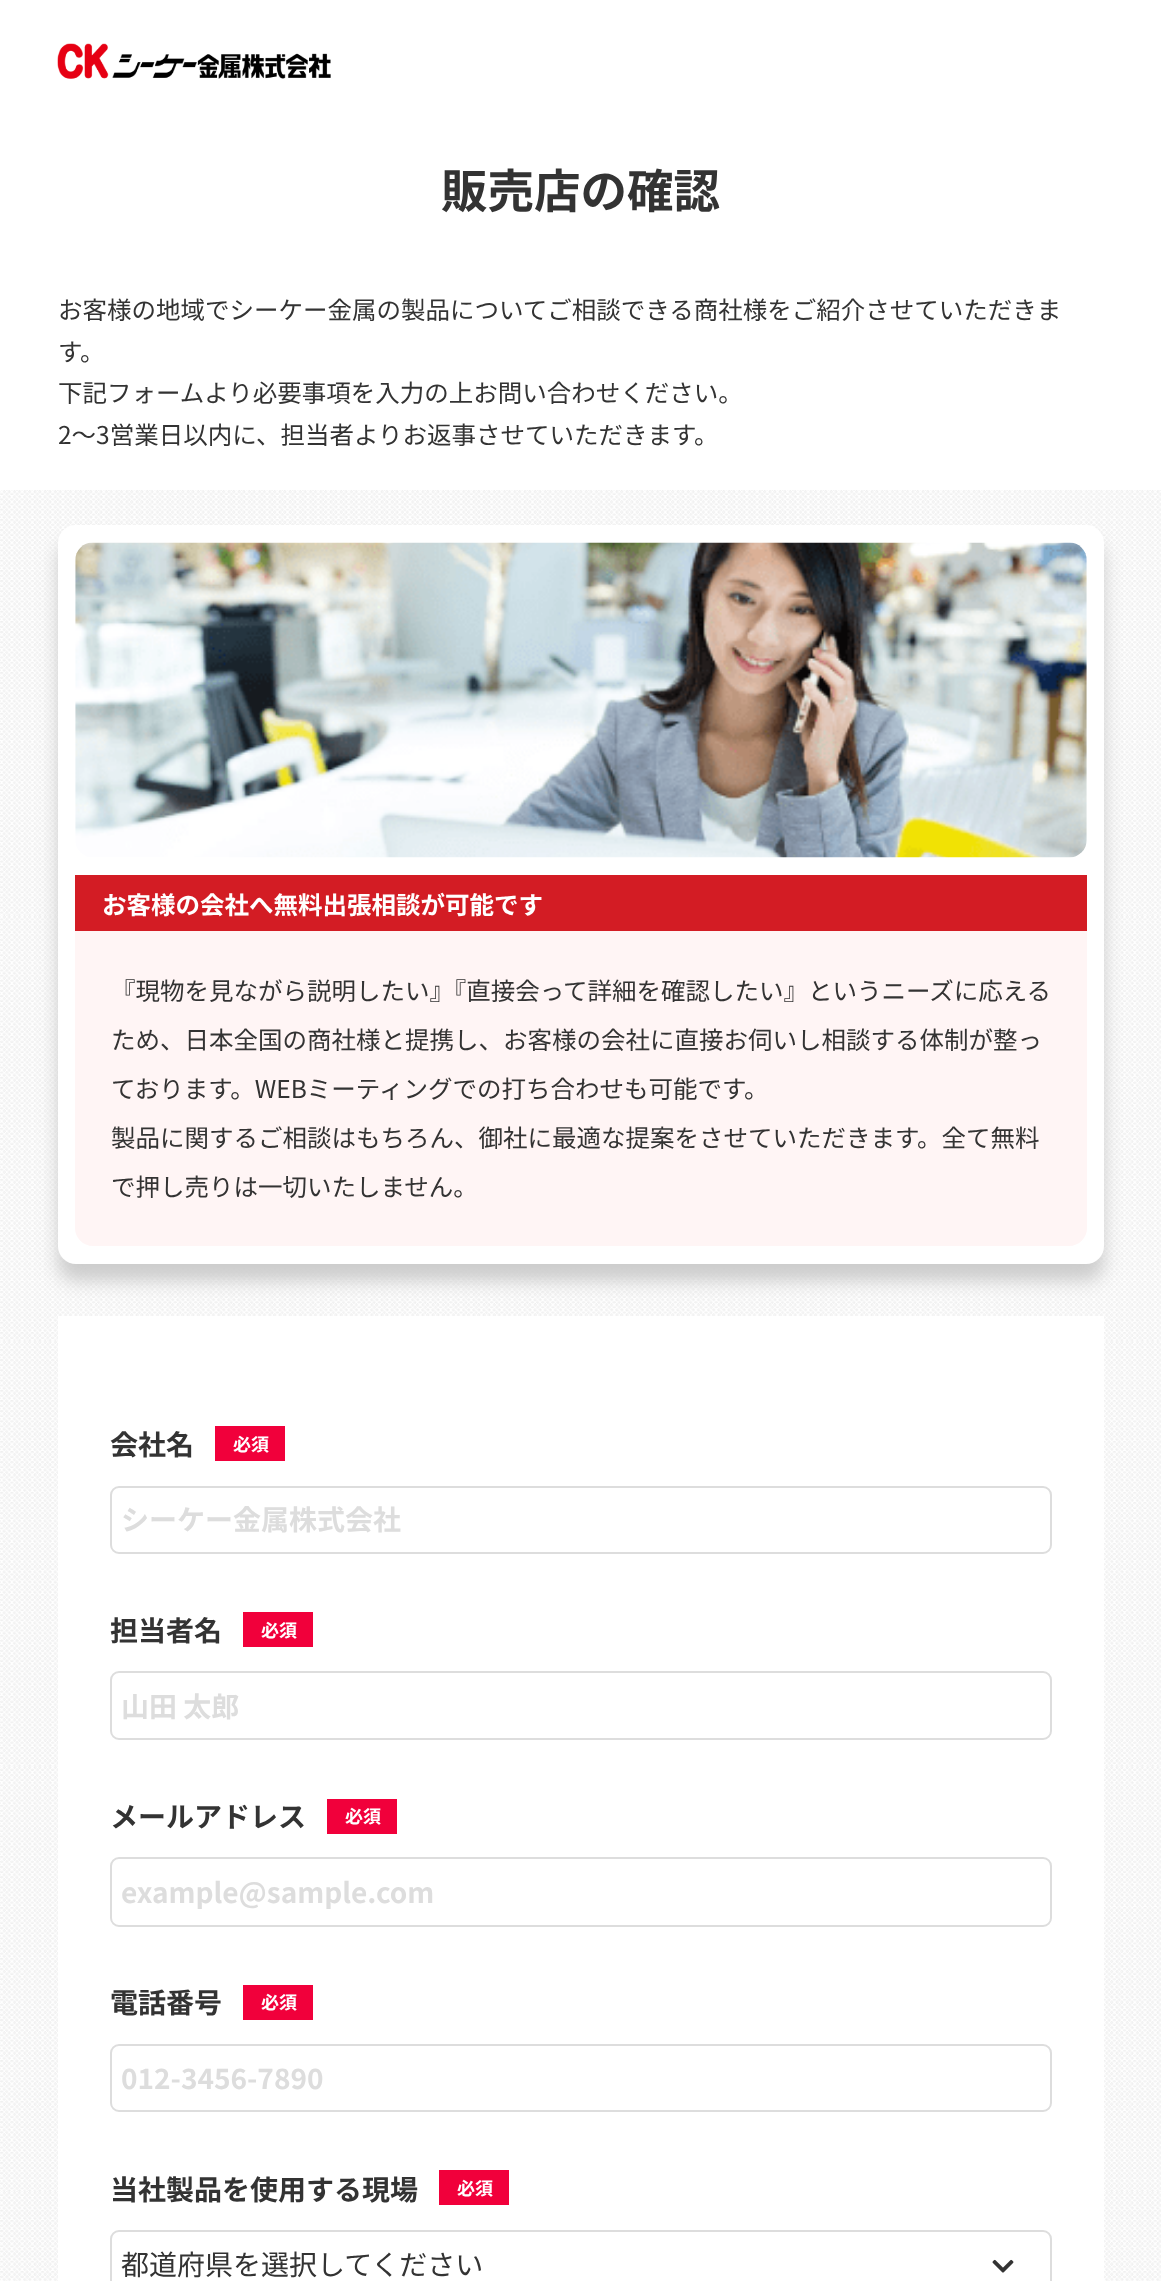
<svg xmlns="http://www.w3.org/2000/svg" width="1161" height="2281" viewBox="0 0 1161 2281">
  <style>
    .t1 { font: bold 46.5px Noto Sans JP; fill: #333; }
    .t2 { font: 24.5px Noto Sans JP; fill: #333; }
    .t3 { font: bold 24.5px Noto Sans JP; fill: #fff; }
    .t4 { font: bold 28px Noto Sans JP; fill: #333; }
    .t5 { font: bold 18px Noto Sans JP; fill: #fff; }
    .t6 { font: bold 28px Noto Sans JP; fill: #ddd; }
    .t7 { font: 28px Noto Sans JP; fill: #333; }
  </style>
  <rect width="100%" height="100%" fill="#fff"/>
  <image x="57" y="43" width="274" height="36" href="images/1.png"/>
  <text x="441" y="208" class="t1">販売店の確認</text>
  <text x="58" y="319" class="t2">お客様の地域でシーケー金属の製品についてご相談できる商社様をご紹介させていただきま</text>
  <text x="58" y="361" class="t2">す。</text>
  <text x="58" y="402" class="t2">下記フォームより必要事項を入力の上お問い合わせください。</text>
  <text x="58" y="444" class="t2">2～3営業日以内に、担当者よりお返事させていただきます。</text>
  <image x="0" y="490" width="1161" height="1791" href="images/2.png"/>
  <rect x="58" y="543" width="1046" height="738" rx="18" fill="#ccc" filter="blur(9px)"/>
  <rect x="58" y="525" width="1046" height="739" rx="18" fill="#fff"/>
  <image x="75" y="542" width="1012" height="316" href="images/3.png"/>
  <rect x="75" y="875" width="1012" height="56" fill="#d31c24"/>
  <text x="102" y="914" class="t3">お客様の会社へ無料出張相談が可能です</text>
  <path d="M75 931H1087V1228C1087 1238 1079 1246 1069 1246H93C83 1246 75 1238 75 1228Z" fill="#fff5f5"/>
  <text x="111" y="1000" class="t2">『現物を見ながら説明したい』『直接会って詳細を確認したい』というニーズに応える</text>
  <text x="111" y="1049" class="t2">ため、日本全国の商社様と提携し、お客様の会社に直接お伺いし相談する体制が整っ</text>
  <text x="111" y="1098" class="t2">ております。WEBミーティングでの打ち合わせも可能です。</text>
  <text x="111" y="1147" class="t2">製品に関するご相談はもちろん、御社に最適な提案をさせていただきます。全て無料</text>
  <text x="111" y="1196" class="t2">で押し売りは一切いたしません。</text>
  <rect x="58" y="1316" width="1046" height="965" fill="#fff"/>
  <text x="110" y="1455" class="t4">会社名</text>
  <rect x="215" y="1426" width="70" height="35" fill="#f1003b"/>
  <text x="233" y="1451" class="t5">必須</text>
  <rect x="111" y="1487" width="940" height="66" rx="8" fill="none" stroke="#ddd" stroke-width="2"/>
  <text x="121" y="1530" class="t6">シーケー金属株式会社</text>
  <text x="110" y="1641" class="t4">担当者名</text>
  <rect x="243" y="1612" width="70" height="35" fill="#f1003b"/>
  <text x="261" y="1637" class="t5">必須</text>
  <rect x="111" y="1672" width="940" height="67" rx="8" fill="none" stroke="#ddd" stroke-width="2"/>
  <text x="121" y="1717" class="t6">山田 太郎</text>
  <text x="110" y="1827" class="t4">メールアドレス</text>
  <rect x="327" y="1799" width="70" height="35" fill="#f1003b"/>
  <text x="345" y="1823" class="t5">必須</text>
  <rect x="111" y="1858" width="940" height="68" rx="8" fill="none" stroke="#ddd" stroke-width="2"/>
  <text x="121" y="1903" class="t6">example@sample.com</text>
  <text x="110" y="2013" class="t4">電話番号</text>
  <rect x="243" y="1985" width="70" height="35" fill="#f1003b"/>
  <text x="261" y="2009" class="t5">必須</text>
  <rect x="111" y="2045" width="940" height="66" rx="8" fill="none" stroke="#ddd" stroke-width="2"/>
  <text x="121" y="2089" class="t6">012-3456-7890</text>
  <text x="110" y="2200" class="t4">当社製品を使用する現場</text>
  <rect x="439" y="2170" width="70" height="35" fill="#f1003b"/>
  <text x="457" y="2195" class="t5">必須</text>
  <rect x="111" y="2231" width="940" height="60" rx="8" fill="none" stroke="#ddd" stroke-width="2"/>
  <text x="121" y="2275" class="t7">都道府県を選択してください</text>
  <image x="992" y="2259" width="22" height="14" href="images/4.png"/>
</svg>
